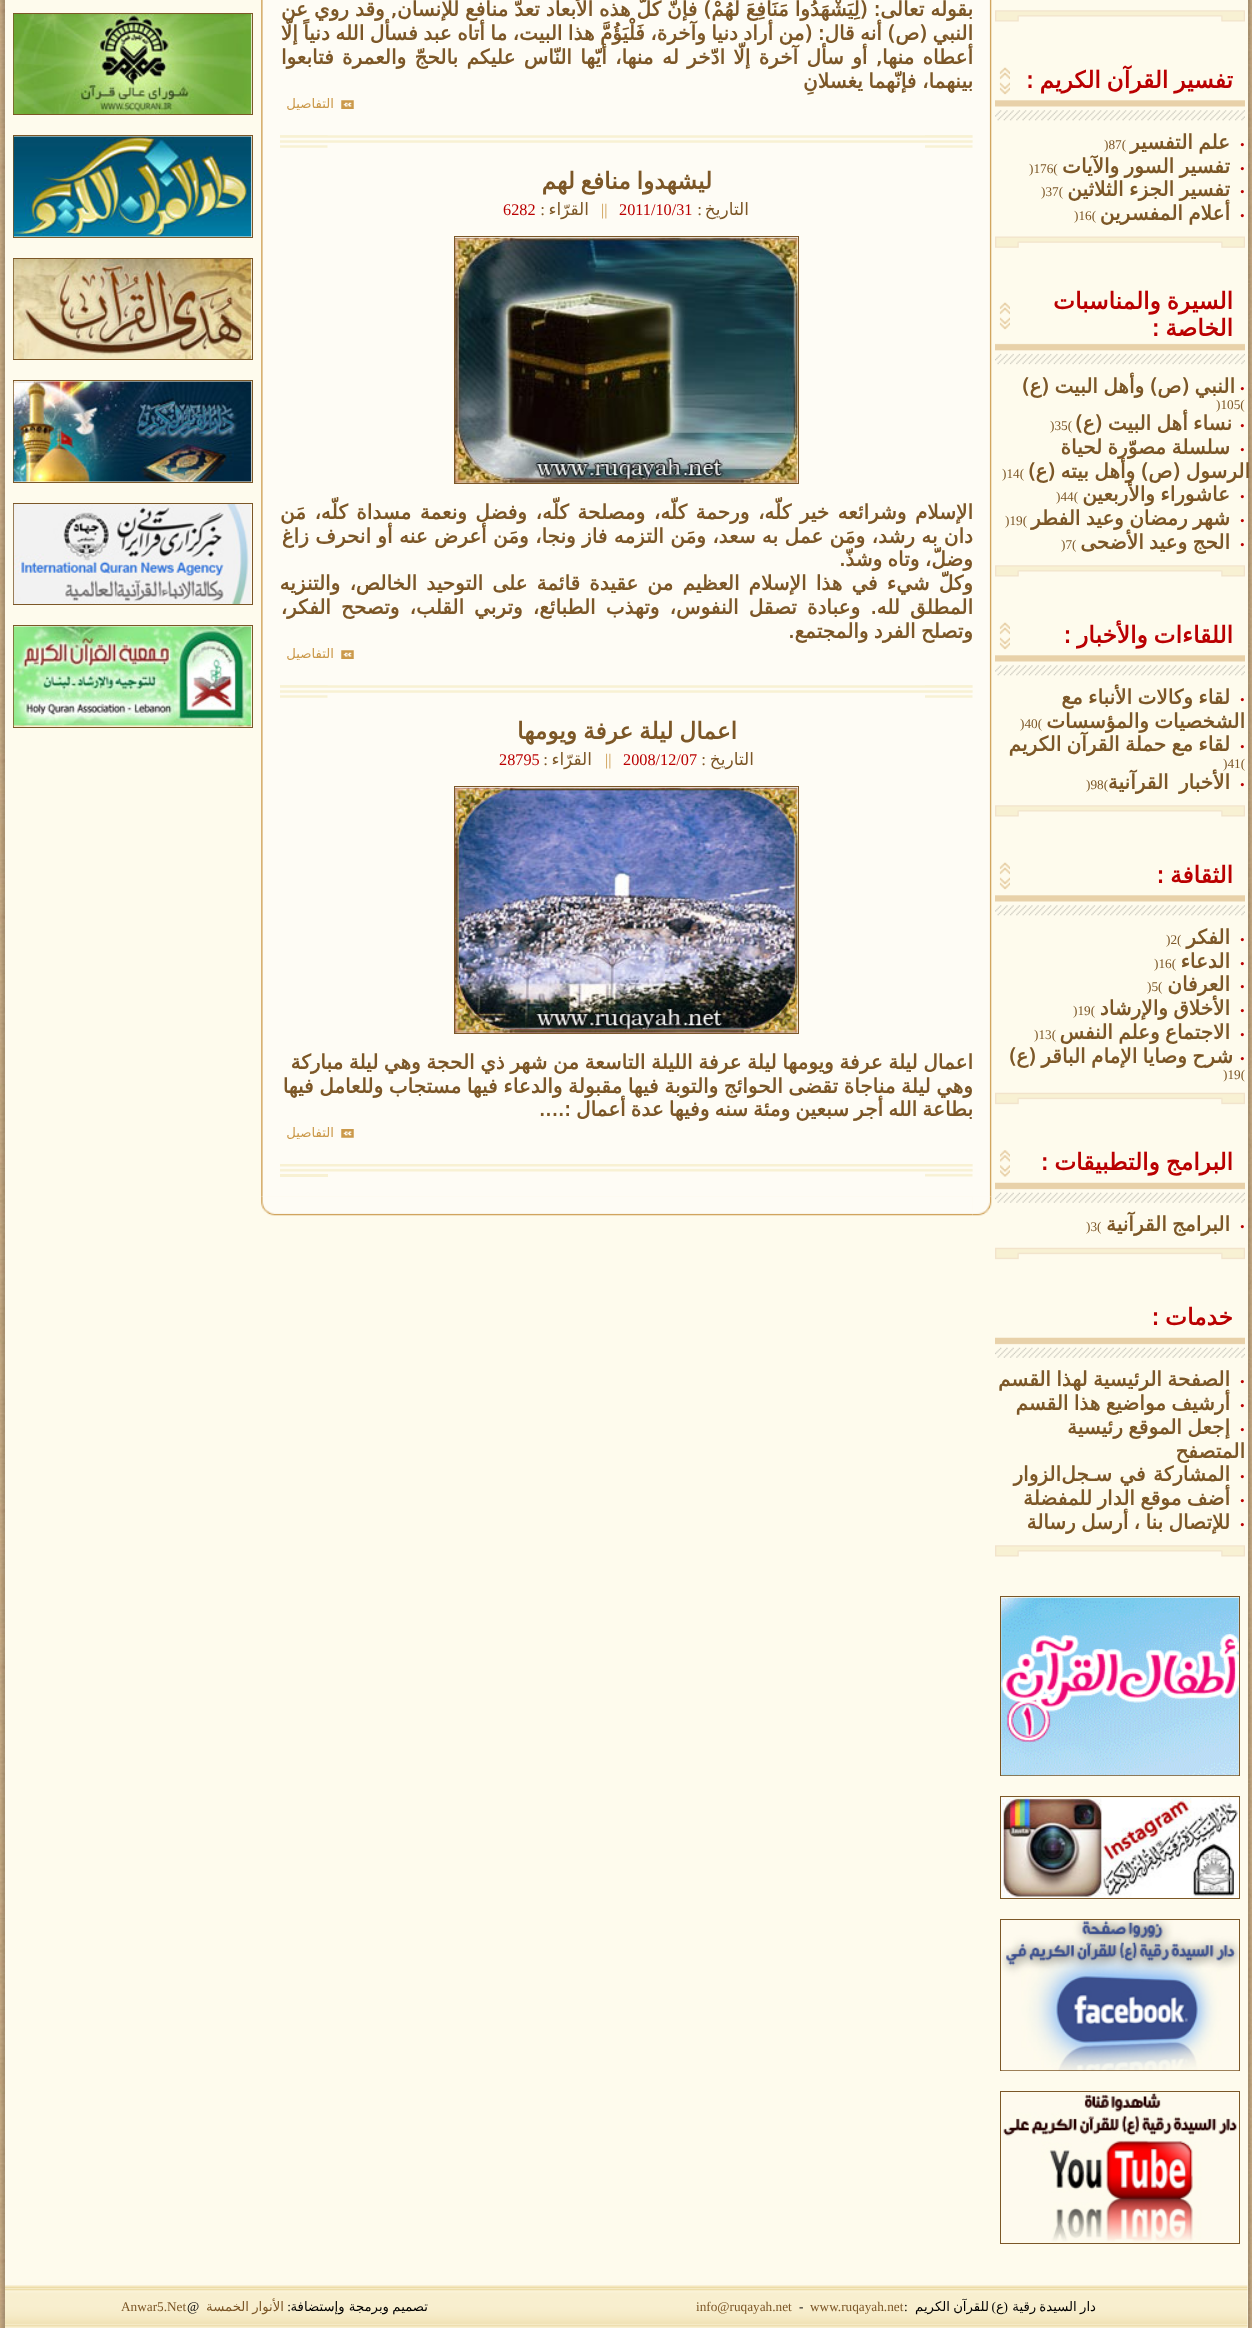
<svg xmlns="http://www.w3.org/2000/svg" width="1252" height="2328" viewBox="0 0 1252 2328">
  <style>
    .t1 { font: bold 23.25px DejaVu Sans; direction: rtl; fill: #ba0001; }
    .t2 { font: 13.25px Liberation Serif; fill: #ba0001; }
    .t3 { font: bold 20px DejaVu Sans; direction: rtl; fill: #7c5727; }
    .t4 { font: 13.25px Liberation Serif; fill: #7c5727; }
    .t5 { font: 13.25px DejaVu Sans; direction: rtl; fill: #cb994a; }
    .t6 { font: bold 23.25px DejaVu Sans; direction: rtl; fill: #7c5727; }
    .t7 { font: 17px DejaVu Sans; direction: rtl; fill: #7c5727; }
    .t8 { font: 17px Liberation Serif; direction: rtl; fill: #7c5727; }
    .t9 { font: 16.25px Liberation Serif; fill: #ba0001; }
    .t10 { font: 16.25px Liberation Serif; fill: #cb994a; }
    .t11 { font: 13.25px DejaVu Sans; direction: rtl; fill: #000; }
    .t12 { font: 13.25px Liberation Serif; direction: rtl; fill: #000; }
    .t13 { font: 13.25px Liberation Serif; fill: #000; }
    .t14 { font: 13.25px DejaVu Sans; direction: rtl; fill: #7c5727; }
  </style>
  <rect width="100%" height="100%" fill="#fff"/>
  <image x="0" y="0" width="1252" height="2328" href="images/1.png"/>
  <rect x="5" y="0" width="1243" height="2328" fill="#fefbed"/>
  <image x="995" y="10" width="250" height="12" href="images/2.png"/>
  <text x="1233" y="88" word-spacing="-1.5" class="t1">تفسير القرآن الكريم :</text>
  <image x="999" y="67" width="11" height="28" href="images/3.png"/>
  <image x="995" y="100" width="250" height="21" href="images/4.png"/>
  <text x="1240" y="149" class="t2">•</text>
  <text x="1230" y="149" word-spacing="-1" class="t3">علم التفسير</text>
  <text x="1104" y="149" class="t4">)87(</text>
  <text x="1240" y="173" class="t2">•</text>
  <text x="1230" y="173" word-spacing="-1" class="t3">تفسير السور والآيات</text>
  <text x="1029" y="173" class="t4">)176(</text>
  <text x="1240" y="196" class="t2">•</text>
  <text x="1230" y="196" word-spacing="-1" class="t3">تفسير الجزء الثلاثين</text>
  <text x="1041" y="196" class="t4">)37(</text>
  <text x="1240" y="220" class="t2">•</text>
  <text x="1230" y="220" word-spacing="-1" class="t3">أعلام المفسرين</text>
  <text x="1074" y="220" class="t4">)16(</text>
  <image x="995" y="236" width="250" height="12" href="images/5.png"/>
  <text x="1233" y="309" word-spacing="-1.5" class="t1">السيرة والمناسبات</text>
  <text x="1233" y="336" word-spacing="-1.5" class="t1">الخاصة :</text>
  <image x="999" y="302" width="11" height="28" href="images/3.png"/>
  <image x="995" y="343" width="250" height="22" href="images/6.png"/>
  <text x="1240" y="393" class="t2">•</text>
  <text x="1235" y="393" word-spacing="-1" class="t3">النبي (ص) وأهل البيت (ع)</text>
  <text x="1216" y="409" class="t4">)105(</text>
  <text x="1240" y="430" class="t2">•</text>
  <text x="1232" y="430" word-spacing="-1" class="t3">نساء أهل البيت (ع)</text>
  <text x="1050" y="430" class="t4">)35(</text>
  <text x="1240" y="454" class="t2">•</text>
  <text x="1230" y="454" word-spacing="-1" class="t3">سلسلة مصوّرة لحياة</text>
  <image x="1248" y="0" width="4" height="2328" href="images/38.png"/>
  <text x="1250" y="478" word-spacing="-1" class="t3">الرسول (ص) وأهل بيته (ع)</text>
  <text x="1002" y="478" class="t4">)14(</text>
  <text x="1240" y="501" class="t2">•</text>
  <text x="1230" y="501" word-spacing="-1" class="t3">عاشوراء والأربعين</text>
  <text x="1056" y="501" class="t4">)44(</text>
  <text x="1240" y="525" class="t2">•</text>
  <text x="1230" y="525" word-spacing="-1" class="t3">شهر رمضان وعيد الفطر</text>
  <text x="1005" y="525" class="t4">)19(</text>
  <text x="1240" y="549" class="t2">•</text>
  <text x="1230" y="549" word-spacing="-1" class="t3">الحج وعيد الأضحى</text>
  <text x="1061" y="549" class="t4">)7(</text>
  <image x="995" y="565" width="250" height="12" href="images/2.png"/>
  <text x="1233" y="643" word-spacing="-1.5" class="t1">اللقاءات والأخبار :</text>
  <image x="999" y="622" width="11" height="28" href="images/3.png"/>
  <image x="995" y="655" width="250" height="21" href="images/4.png"/>
  <text x="1240" y="704" class="t2">•</text>
  <text x="1230" y="704" word-spacing="-1" class="t3">لقاء وكالات الأنباء مع</text>
  <text x="1245" y="728" word-spacing="-1" class="t3">الشخصيات والمؤسسات</text>
  <text x="1020" y="728" class="t4">)40(</text>
  <text x="1240" y="751" class="t2">•</text>
  <text x="1230" y="751" word-spacing="-1" class="t3">لقاء مع حملة القرآن الكريم</text>
  <text x="1223" y="768" class="t4">)41(</text>
  <text x="1240" y="789" class="t2">•</text>
  <text x="1230" y="789" word-spacing="4" class="t3">الأخبار القرآنية</text>
  <text x="1086" y="789" class="t4">)98(</text>
  <image x="995" y="805" width="250" height="12" href="images/2.png"/>
  <text x="1233" y="883" word-spacing="-1.5" class="t1">الثقافة :</text>
  <image x="999" y="862" width="11" height="28" href="images/3.png"/>
  <image x="995" y="895" width="250" height="21" href="images/4.png"/>
  <text x="1240" y="944" class="t2">•</text>
  <text x="1230" y="944" class="t3">الفكر</text>
  <text x="1166" y="944" class="t4">)2(</text>
  <text x="1240" y="968" class="t2">•</text>
  <text x="1230" y="968" class="t3">الدعاء</text>
  <text x="1154" y="968" class="t4">)16(</text>
  <text x="1240" y="991" class="t2">•</text>
  <text x="1230" y="991" class="t3">العرفان</text>
  <text x="1147" y="991" class="t4">)5(</text>
  <text x="1240" y="1015" class="t2">•</text>
  <text x="1230" y="1015" word-spacing="-1" class="t3">الأخلاق والإرشاد</text>
  <text x="1073" y="1015" class="t4">)19(</text>
  <text x="1240" y="1039" class="t2">•</text>
  <text x="1230" y="1039" word-spacing="-1" class="t3">الاجتماع وعلم النفس</text>
  <text x="1034" y="1039" class="t4">)13(</text>
  <text x="1240" y="1063" class="t2">•</text>
  <text x="1233" y="1063" word-spacing="-1" class="t3">شرح وصايا الإمام الباقر (ع)</text>
  <text x="1223" y="1079" class="t4">)19(</text>
  <image x="995" y="1081" width="250" height="24" href="images/7.png"/>
  <text x="1233" y="1170" word-spacing="-1.5" class="t1">البرامج والتطبيقات :</text>
  <image x="1000" y="1150" width="10" height="27" href="images/8.png"/>
  <image x="995" y="1182" width="250" height="21" href="images/9.png"/>
  <text x="1240" y="1231" class="t2">•</text>
  <text x="1230" y="1231" word-spacing="-1" class="t3">البرامج القرآنية</text>
  <text x="1086" y="1231" class="t4">)3(</text>
  <image x="995" y="1247" width="250" height="13" href="images/10.png"/>
  <text x="1233" y="1325" word-spacing="-1.5" class="t1">خدمات :</text>
  <image x="995" y="1337" width="250" height="21" href="images/9.png"/>
  <text x="1240" y="1386" class="t2">•</text>
  <text x="1230" y="1386" word-spacing="-1" class="t3">الصفحة الرئيسية لهذا القسم</text>
  <text x="1240" y="1410" class="t2">•</text>
  <text x="1230" y="1410" word-spacing="-1" class="t3">أرشيف مواضيع هذا القسم</text>
  <text x="1240" y="1434" class="t2">•</text>
  <text x="1230" y="1434" word-spacing="-1" class="t3">إجعل الموقع رئيسية</text>
  <text x="1245" y="1458" class="t3">المتصفح</text>
  <text x="1240" y="1481" class="t2">•</text>
  <text x="1230" y="1481" word-spacing="1" class="t3">المشاركة في سـجل</text>
  <text x="1061" y="1481" class="t3">الزوار</text>
  <text x="1240" y="1505" class="t2">•</text>
  <text x="1230" y="1505" word-spacing="-1" class="t3">أضف موقع الدار للمفضلة</text>
  <text x="1240" y="1529" class="t2">•</text>
  <text x="1230" y="1529" word-spacing="-1" class="t3">للإتصال بنا ، أرسل رسالة</text>
  <image x="995" y="1545" width="250" height="12" href="images/2.png"/>
  <rect x="1000.5" y="1596.5" width="239" height="179" fill="none" stroke="#7c5727"/>
  <image x="1001" y="1597" width="238" height="179" href="images/11.png"/>
  <rect x="1000.5" y="1796.5" width="239" height="102" fill="none" stroke="#7c5727"/>
  <image x="1001" y="1797" width="238" height="101" href="images/12.png"/>
  <rect x="1000.5" y="1919.5" width="239" height="151" fill="none" stroke="#7c5727"/>
  <image x="1001" y="1920" width="238" height="151" href="images/13.png"/>
  <rect x="1000.5" y="2091.5" width="239" height="152" fill="none" stroke="#7c5727"/>
  <image x="1003" y="2092" width="234" height="150" href="images/14.png"/>
  <rect x="280" y="0" width="693" height="1196" fill="#fefcf5"/>
  <image x="280" y="135" width="693" height="8" href="images/16.png"/>
  <image x="280" y="685" width="693" height="8" href="images/16.png"/>
  <image x="280" y="1164" width="693" height="8" href="images/22.png"/>
  <image x="972" y="0" width="20" height="1197" href="images/25.png"/>
  <text x="973" y="16" word-spacing="-0.4" class="t3">بقوله تعالى: (لِيَشْهَدُوا مَنَافِعَ لَهُمْ) فإنّ كلّ هذه الأبعاد تعدّ منافع للإنسان, وقد روي عن</text>
  <text x="973" y="40" word-spacing="-0.9" class="t3">النبي (ص) أنه قال: (من أراد دنيا وآخرة، فَلْيَؤُمَّ هذا البيت، ما أتاه عبد فسأل الله دنياً إلّا</text>
  <text x="973" y="64" word-spacing="2" class="t3">أعطاه منها, أو سأل آخرة إلّا ادّخر له منها، أيّها النّاس عليكم بالحجّ والعمرة فتابعوا</text>
  <text x="973" y="88" word-spacing="-0.75" class="t3">بينهما، فإنّهما يغسلانِ</text>
  <image x="341" y="100" width="13" height="9" href="images/15.png"/>
  <text x="334" y="108" class="t5">التفاصيل</text>
  <image x="925" y="135" width="48" height="13" href="images/17.png"/>
  <image x="280" y="135" width="48" height="13" href="images/18.png"/>
  <text x="712" y="189" word-spacing="-1.5" class="t6">ليشهدوا منافع لهم</text>
  <text x="749" y="215" class="t7">التاريخ</text>
  <text x="702" y="215" class="t8">:</text>
  <text x="619" y="215" class="t9">2011/10/31</text>
  <text x="601" y="215" class="t10">||</text>
  <text x="589" y="215" class="t7">القرّاء</text>
  <text x="545" y="215" class="t8">:</text>
  <text x="503" y="215" class="t9">6282</text>
  <rect x="454.5" y="236.5" width="344" height="247" fill="none" stroke="#7c5727"/>
  <image x="455" y="237" width="343" height="246" href="images/19.png"/>
  <text x="973" y="519" word-spacing="2.1" class="t3">الإسلام وشرائعه خير كلّه، ورحمة كلّه، ومصلحة كلّه، وفضل ونعمة مسداة كلّه، مَن</text>
  <text x="973" y="543" class="t3">دان به رشد، ومَن عمل به سعد، ومَن التزمه فاز ونجا، ومَن أعرض عنه أو انحرف زاغ</text>
  <text x="973" y="566" word-spacing="-1" class="t3">وضلّ، وتاه وشذّ.</text>
  <text x="973" y="590" word-spacing="2.75" class="t3">وكلّ شيء في هذا الإسلام العظيم من عقيدة قائمة على التوحيد الخالص، والتنزيه</text>
  <text x="973" y="614" word-spacing="3.75" class="t3">المطلق لله. وعبادة تصقل النفوس، وتهذب الطبائع، وتربي القلب، وتصحح الفكر،</text>
  <text x="973" y="638" word-spacing="-1" class="t3">وتصلح الفرد والمجتمع.</text>
  <image x="341" y="650" width="13" height="9" href="images/15.png"/>
  <text x="334" y="658" class="t5">التفاصيل</text>
  <image x="925" y="685" width="48" height="13" href="images/17.png"/>
  <image x="280" y="685" width="48" height="13" href="images/18.png"/>
  <text x="737" y="739" word-spacing="-1.5" class="t6">اعمال ليلة عرفة ويومها</text>
  <text x="754" y="765" class="t7">التاريخ</text>
  <text x="706" y="765" class="t8">:</text>
  <text x="623" y="765" class="t9">2008/12/07</text>
  <text x="605" y="765" class="t10">||</text>
  <text x="592" y="765" class="t7">القرّاء</text>
  <text x="548" y="765" class="t8">:</text>
  <text x="499" y="765" class="t9">28795</text>
  <rect x="454.5" y="786.5" width="344" height="247" fill="none" stroke="#7c5727"/>
  <image x="455" y="787" width="343" height="246" href="images/20.png"/>
  <text x="973" y="1069" word-spacing="-0.75" class="t3">اعمال ليلة عرفة ويومها ليلة عرفة الليلة التاسعة من شهر ذي الحجة وهي ليلة مباركة</text>
  <text x="973" y="1093" word-spacing="-0.75" class="t3">وهي ليلة مناجاة تقضى الحوائج والتوبة فيها مقبولة والدعاء فيها مستجاب وللعامل فيها</text>
  <text x="973" y="1116" word-spacing="-1.25" class="t3">بطاعة الله أجر سبعين ومئة سنه وفيها عدة أعمال :....</text>
  <image x="341" y="1129" width="13" height="9" href="images/21.png"/>
  <text x="334" y="1137" class="t5">التفاصيل</text>
  <image x="925" y="1164" width="48" height="13" href="images/23.png"/>
  <rect x="280" y="1174" width="48" height="3" fill="#f8f1d3"/>
  <image x="261" y="0" width="19" height="1197" href="images/24.png"/>
  <image x="280" y="1196" width="693" height="20" href="images/27.png"/>
  <image x="972" y="1196" width="20" height="20" href="images/26.png"/>
  <image x="261" y="1196" width="19" height="20" href="images/28.png"/>
  <rect x="13.5" y="13.5" width="239" height="101" fill="none" stroke="#7c5727"/>
  <image x="13" y="14" width="239" height="100" href="images/29.png"/>
  <rect x="13.5" y="135.5" width="239" height="102" fill="none" stroke="#7c5727"/>
  <image x="13" y="136" width="239" height="101" href="images/30.png"/>
  <rect x="13.5" y="258.5" width="239" height="101" fill="none" stroke="#7c5727"/>
  <image x="13" y="259" width="239" height="100" href="images/31.png"/>
  <rect x="13.5" y="380.5" width="239" height="102" fill="none" stroke="#7c5727"/>
  <image x="13" y="381" width="239" height="101" href="images/32.png"/>
  <rect x="13.5" y="503.5" width="239" height="101" fill="none" stroke="#7c5727"/>
  <image x="13" y="504" width="238" height="100" href="images/33.png"/>
  <rect x="13.5" y="625.5" width="239" height="102" fill="none" stroke="#7c5727"/>
  <image x="13" y="626" width="239" height="101" href="images/34.png"/>
  <image x="545" y="2285" width="703" height="43" href="images/35.png"/>
  <text x="1096" y="2311" word-spacing="-1" class="t11">دار السيدة رقية</text>
  <text x="1008" y="2311" class="t12">(</text>
  <text x="1004" y="2311" class="t11">ع</text>
  <text x="996" y="2311" class="t12">)</text>
  <text x="989" y="2311" word-spacing="-1" class="t11">للقرآن الكريم</text>
  <text x="904" y="2311" class="t13">:</text>
  <text x="810" y="2311" class="t4">www.ruqayah.net</text>
  <text x="799" y="2311" class="t13">-</text>
  <text x="696" y="2311" class="t4">info@ruqayah.net</text>
  <image x="5" y="2285" width="540" height="43" href="images/36.png"/>
  <text x="428" y="2311" class="t11">تصميم</text>
  <text x="389" y="2311" class="t11">وبرمجة وإستضافة</text>
  <text x="291" y="2311" class="t12">:</text>
  <text x="284" y="2311" word-spacing="-1" class="t14">الأنوار الخمسة</text>
  <text x="187" y="2311" class="t13">@</text>
  <text x="121" y="2311" class="t4">Anwar5.Net</text>
  <image x="0" y="0" width="5" height="2328" href="images/37.png"/>
</svg>
